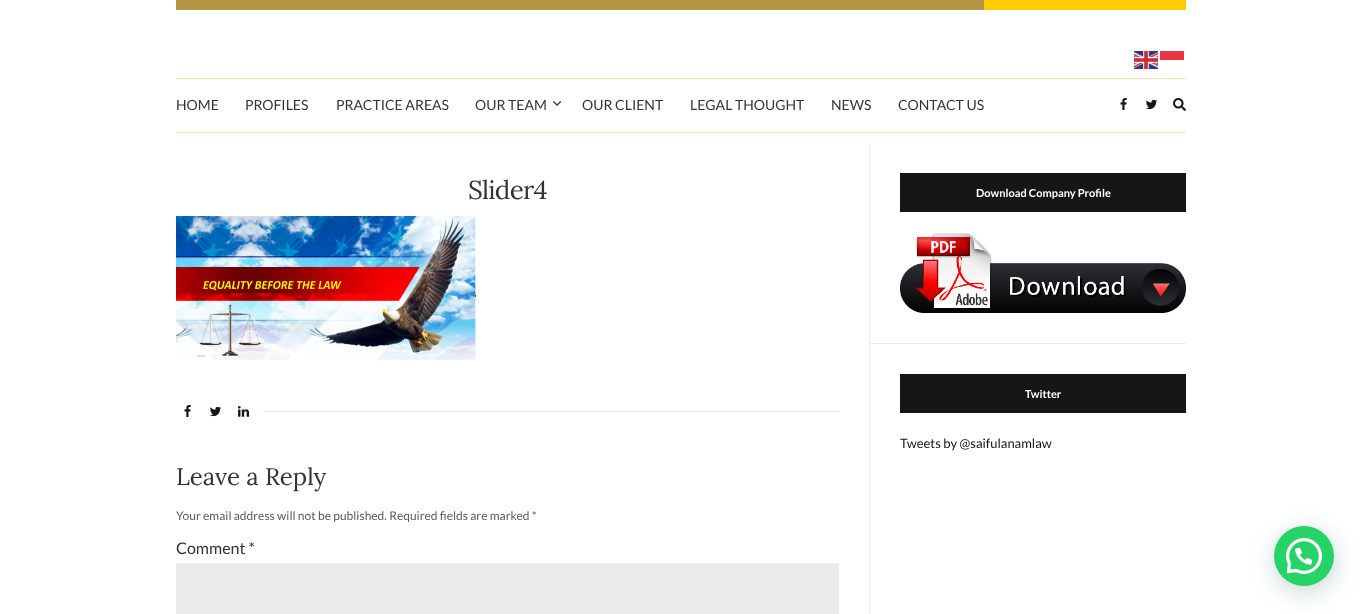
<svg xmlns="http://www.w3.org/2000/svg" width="1362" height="614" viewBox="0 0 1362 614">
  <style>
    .t1 { font: 14px Lato; fill: #333; }
    .t2 { font: 26px Lora; letter-spacing: -0.75px; fill: #333; }
    .t3 { font: 24px Lora; fill: #333; }
    .t4 { font: 12px Lato; fill: #5c5c5c; }
    .t5 { font: 16px Lato; fill: #333; }
    .t6 { font: bold 11px Lato; fill: #fff; }
    .t7 { font: 13px Lato; fill: #161616; }
  </style>
  <rect width="100%" height="100%" fill="#fff"/>
  <rect x="176" y="0" width="808" height="10" fill="#b49543"/>
  <rect x="984" y="0" width="202" height="10" fill="#fc0"/>
  <image x="1134" y="51" width="24" height="18" href="images/1.png"/>
  <rect x="1160" y="51" width="24" height="9" fill="#ec3341"/>
  <rect x="176" y="78" width="1010" height="1" fill="#ffe4a2"/>
  <rect x="176" y="132" width="1010" height="1" fill="#ffe4a2"/>
  <text x="176" y="110" class="t1">HOME</text>
  <text x="245" y="110" class="t1">PROFILES</text>
  <text x="336" y="110" class="t1">PRACTICE AREAS</text>
  <text x="475" y="110" class="t1">OUR TEAM</text>
  <image x="553" y="101" width="9" height="5" href="images/2.png"/>
  <text x="582" y="110" class="t1">OUR CLIENT</text>
  <text x="690" y="110" class="t1">LEGAL THOUGHT</text>
  <text x="831" y="110" class="t1">NEWS</text>
  <text x="898" y="110" class="t1">CONTACT US</text>
  <image x="1120" y="98" width="7" height="13" href="images/3.png"/>
  <image x="1146" y="99" width="11" height="11" href="images/4.png"/>
  <image x="1173" y="98" width="13" height="13" href="images/5.png"/>
  <text x="468" y="199" class="t2">Slider4</text>
  <rect x="176" y="295" width="300" height="2" fill="#111"/>
  <image x="176" y="216" width="300" height="144" href="images/6.png"/>
  <image x="184" y="405" width="7" height="13" href="images/3.png"/>
  <image x="210" y="406" width="11" height="11" href="images/4.png"/>
  <image x="237" y="406" width="13" height="11" href="images/7.png"/>
  <rect x="263" y="411" width="576" height="1" fill="#ebebeb"/>
  <text x="176" y="485" class="t3">Leave a Reply</text>
  <text x="176" y="520" class="t4">Your email address will not be published. Required fields are marked *</text>
  <text x="176" y="554" class="t5">Comment *</text>
  <rect x="176" y="563" width="663" height="51" fill="#ebebeb"/>
  <rect x="869" y="143" width="1" height="471" fill="#ebebeb"/>
  <rect x="870" y="343" width="316" height="1" fill="#ebebeb"/>
  <rect x="900" y="173" width="286" height="39" fill="#161616"/>
  <text x="976" y="197" class="t6">Download Company Profile</text>
  <image x="900" y="233" width="286" height="80" href="images/8.png"/>
  <rect x="900" y="374" width="286" height="39" fill="#161616"/>
  <text x="1025" y="398" class="t6">Twitter</text>
  <text x="900" y="448" class="t7">Tweets by @saifulanamlaw</text>
  <rect x="1275" y="532" width="60" height="60" rx="30" fill="#075e543d" filter="blur(12px)"/>
  <circle cx="1304" cy="556" r="30" fill="#25d366"/>
  <image x="1286" y="538" width="36" height="36" href="images/9.png"/>
</svg>
